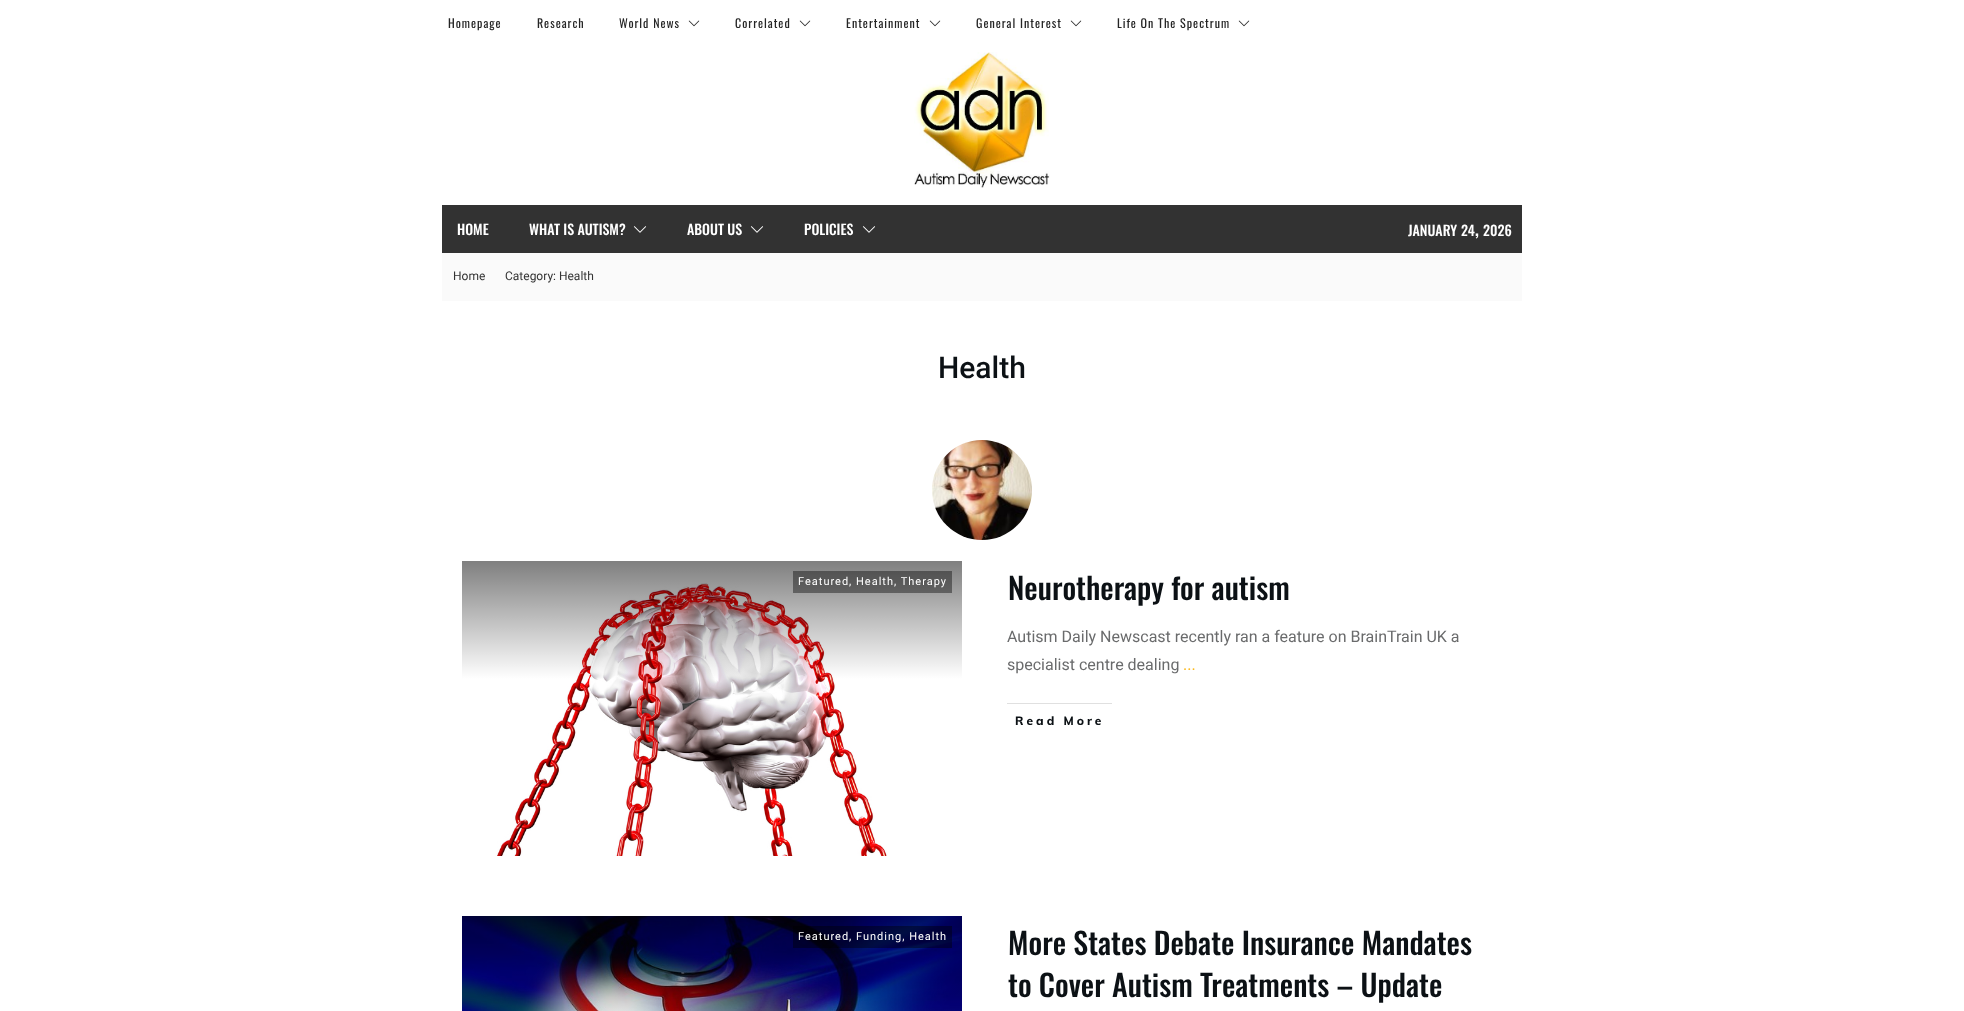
<svg xmlns="http://www.w3.org/2000/svg" width="1964" height="1011" viewBox="0 0 1964 1011">
  <style>
    .t1 { font: 12px Oswald; letter-spacing: 1px; fill: #252525; }
    .t2 { font: 500 14px Oswald; fill: #fff; }
    .t3 { font: 500 18px Oswald; fill: #fff; }
    .t4 { font: 12px Roboto; fill: #333; }
    .t5 { font: 500 30px Roboto; fill: #0c1115; }
    .t6 { font: 11px Roboto; letter-spacing: 1px; fill: #fff; }
    .t7 { font: 500 30px Oswald; fill: #0c1115; }
    .t8 { font: 16px Roboto; fill: #6a6b6c; }
    .t9 { font: 16px Roboto; fill: #fcb91d; }
    .t10 { font: 800 12px Muli; letter-spacing: 3px; fill: #0c1115; }
  </style>
  <rect width="100%" height="100%" fill="#fff"/>
  <text x="448" y="28" class="t1">Homepage</text>
  <text x="537" y="28" class="t1">Research</text>
  <text x="619" y="28" class="t1">World News</text>
  <image x="688" y="20" width="12" height="7" href="images/1.png"/>
  <text x="735" y="28" class="t1">Correlated</text>
  <image x="799" y="20" width="12" height="7" href="images/1.png"/>
  <text x="846" y="28" class="t1">Entertainment</text>
  <image x="929" y="20" width="12" height="7" href="images/1.png"/>
  <text x="976" y="28" class="t1">General Interest</text>
  <image x="1070" y="20" width="12" height="7" href="images/1.png"/>
  <text x="1117" y="28" class="t1">Life On The Spectrum</text>
  <image x="1238" y="20" width="12" height="7" href="images/1.png"/>
  <image x="914" y="52" width="136" height="136" href="images/2.png"/>
  <rect x="442" y="205" width="1080" height="48" fill="#323232"/>
  <text x="457" y="235" class="t2">HOME</text>
  <text x="529" y="235" class="t2">WHAT IS AUTISM?</text>
  <image x="633" y="226" width="14" height="7" href="images/3.png"/>
  <text x="687" y="235" class="t2">ABOUT US</text>
  <image x="750" y="226" width="14" height="7" href="images/3.png"/>
  <text x="804" y="235" class="t2">POLICIES</text>
  <image x="862" y="226" width="14" height="7" href="images/3.png"/>
  <text x="1408" y="236" class="t2">JANUARY</text>
  <text x="1461" y="236" class="t2">24</text>
  <text x="1475" y="236" class="t3">,</text>
  <text x="1483" y="236" class="t2">2026</text>
  <rect x="442" y="253" width="1080" height="48" fill="#fafafa"/>
  <text x="453" y="280" class="t4">Home</text>
  <text x="505" y="280" class="t4">Category: Health</text>
  <text x="938" y="378" class="t5">Health</text>
  <image x="932" y="440" width="100" height="100" href="images/4.png"/>
  <image x="462" y="561" width="500" height="295" href="images/5.png"/>
  <rect x="793" y="571" width="159" height="22" fill="#00000066"/>
  <text x="798" y="585" class="t6">Featured, Health, Therapy</text>
  <text x="1008" y="600" class="t7">Neurotherapy for autism</text>
  <text x="1007" y="642" class="t8">Autism Daily Newscast recently ran a feature on BrainTrain UK a</text>
  <text x="1007" y="670" class="t8">specialist centre dealing</text>
  <text x="1183" y="670" class="t9">...</text>
  <rect x="1007" y="703" width="105" height="1" fill="#e0e0e0"/>
  <text x="1015" y="725" class="t10">Read More</text>
  <image x="462" y="916" width="500" height="95" href="images/6.png"/>
  <rect x="793" y="926" width="159" height="22" fill="#00000066"/>
  <text x="798" y="940" class="t6">Featured, Funding, Health</text>
  <text x="1008" y="955" class="t7">More States Debate Insurance Mandates</text>
  <text x="1008" y="997" class="t7">to Cover Autism Treatments – Update</text>
</svg>
